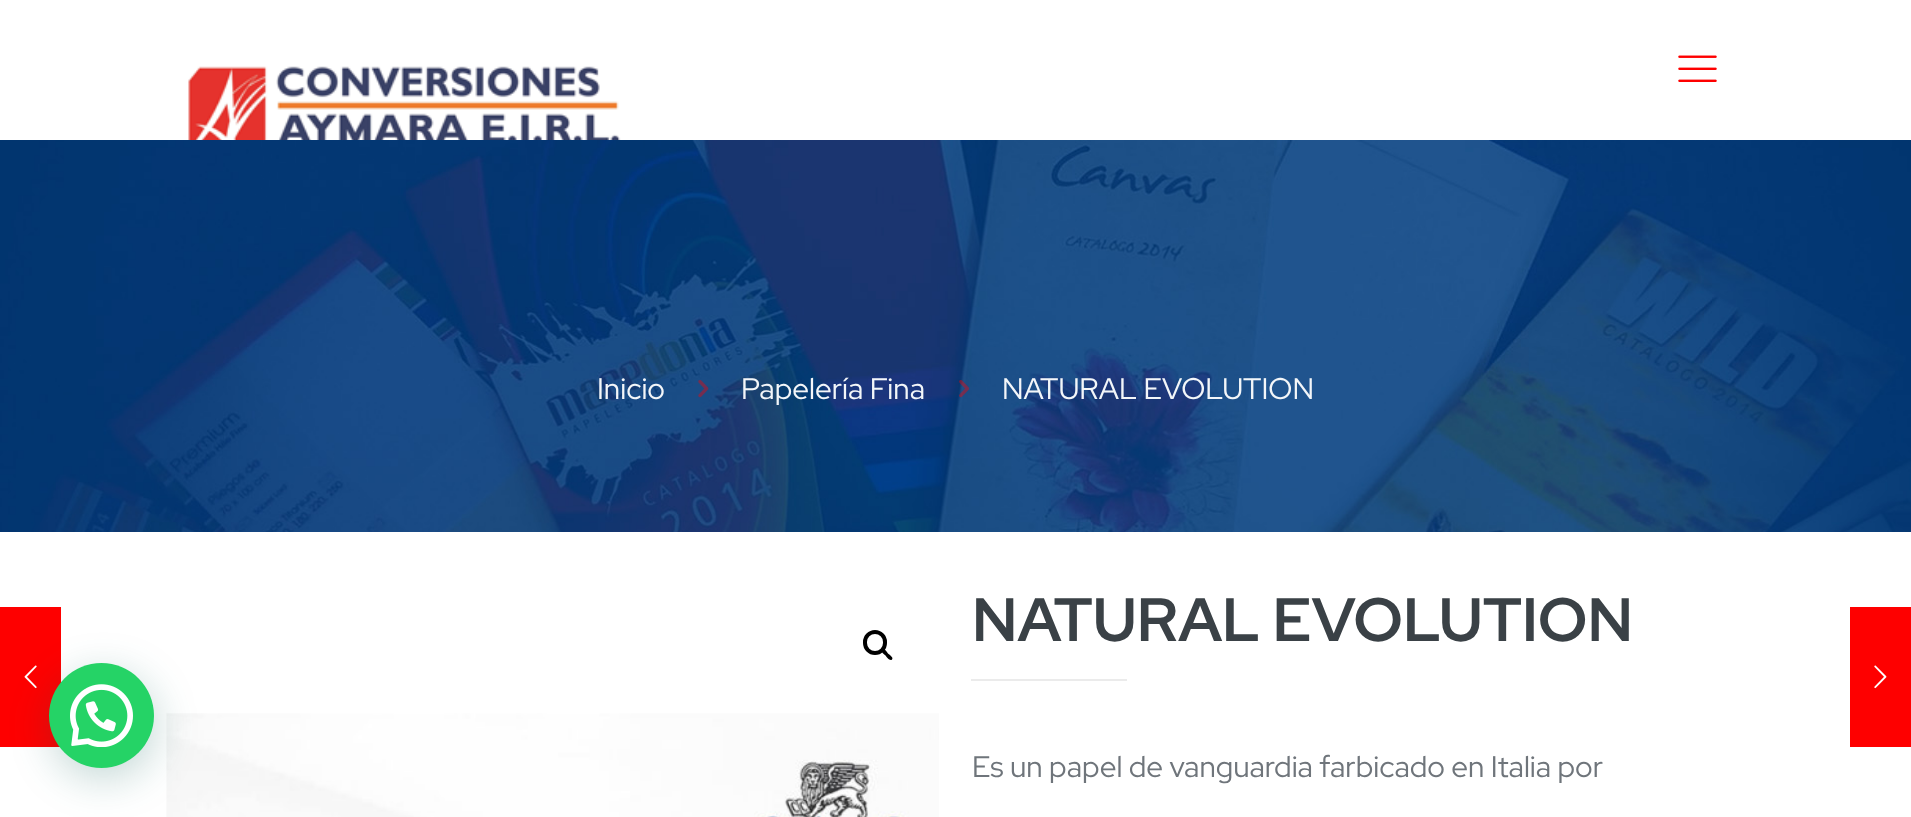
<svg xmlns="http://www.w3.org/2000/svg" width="1911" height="817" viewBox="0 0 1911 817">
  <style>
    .t1 { font: 29.75px Red Hat Display; fill: #f3f6f9; }
    .t2 { font: bold 61.25px Red Hat Display; fill: #3a4146; }
    .t3 { font: 29.75px Red Hat Display; fill: #6f757b; }
  </style>
  <rect width="100%" height="100%" fill="#fff"/>
  <rect x="0" y="607" width="61" height="140" fill="#fe0000"/>
  <image x="24" y="665" width="13" height="24" href="images/1.png"/>
  <image x="188" y="66" width="433" height="74" href="images/2.png"/>
  <image x="1678" y="55" width="39" height="27" href="images/3.png"/>
  <image x="0" y="140" width="1911" height="392" href="images/4.png"/>
  <text x="597" y="399" class="t1">Inicio</text>
  <image x="698" y="380" width="11" height="18" href="images/5.png"/>
  <text x="741" y="399" class="t1">Papelería Fina</text>
  <image x="959" y="380" width="11" height="18" href="images/6.png"/>
  <text x="1002" y="399" class="t1">NATURAL EVOLUTION</text>
  <rect x="865" y="632" width="20" height="21" rx="10" fill="none" stroke="#000" stroke-width="4"/>
  <path d="M882 649.5C884 647.5 887 652 888 653.5C889 654.5 894 657.5 892 659.5C890 661.5 886.5 657 885.5 655.5C884.5 654.5 880 651.5 882 649.5Z" fill="#000"/>
  <image x="166" y="713" width="773" height="104" href="images/7.png"/>
  <text x="972" y="641" class="t2">NATURAL EVOLUTION</text>
  <rect x="971" y="679" width="156" height="2" fill="#ebebeb"/>
  <text x="972" y="777" class="t3">Es un papel de vanguardia farbicado en Italia por</text>
  <rect x="1850" y="607" width="61" height="140" fill="#fe0000"/>
  <image x="1874" y="665" width="13" height="24" href="images/8.png"/>
  <rect x="51" y="674" width="105" height="105" rx="52.5" fill="#075e543d" filter="blur(21px)"/>
  <circle cx="101.5" cy="715.5" r="52.5" fill="#25d366"/>
  <image x="70" y="684" width="63" height="63" href="images/9.png"/>
</svg>
